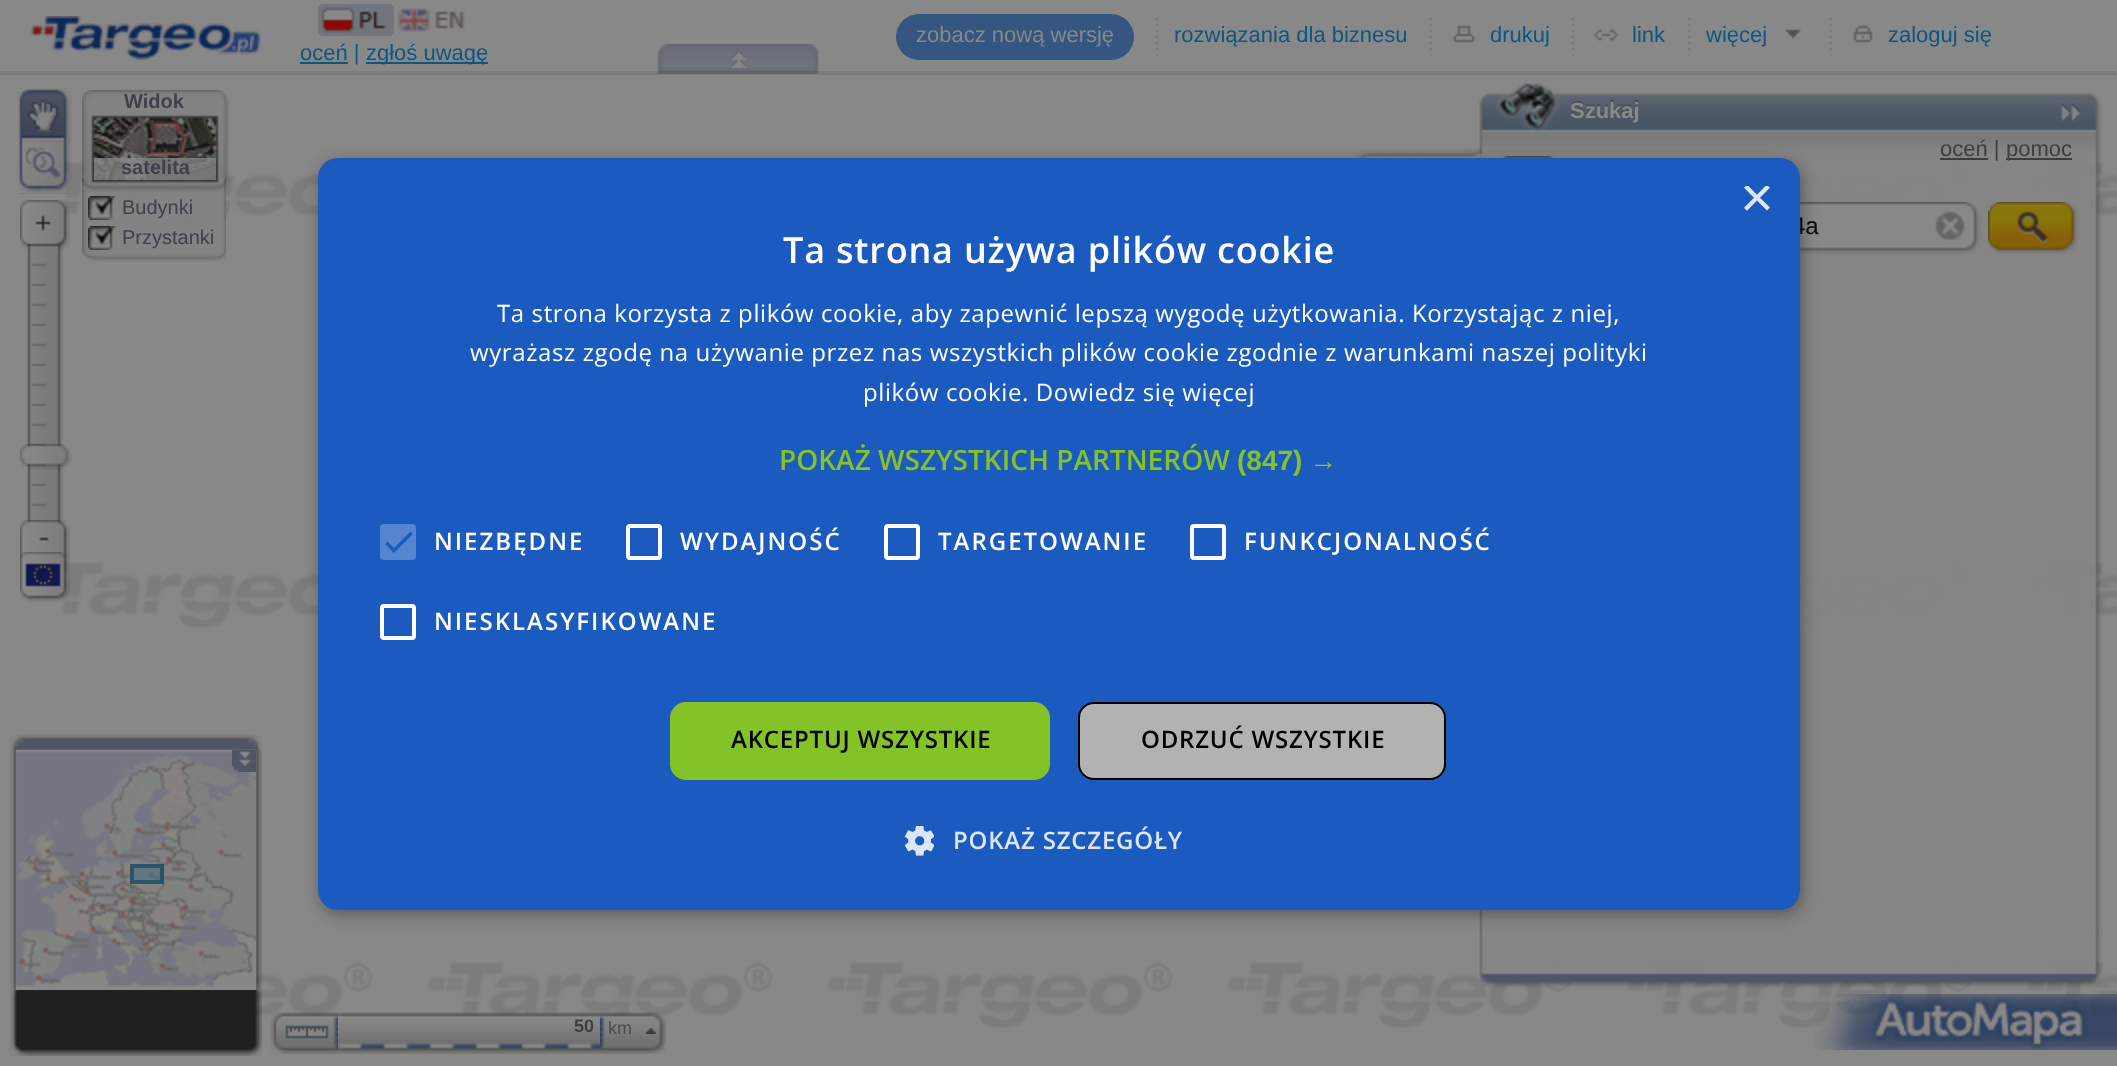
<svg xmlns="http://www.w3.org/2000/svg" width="2117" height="1066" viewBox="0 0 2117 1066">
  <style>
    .t1 { font: 22px Liberation Sans; fill: #888; }
    .t2 { font: 22px Liberation Sans; fill: #0b5782; }
    .t3 { font: bold 20px Liberation Sans; fill: #3d414b; }
    .t4 { font: 20px Liberation Sans; fill: #3d414b; }
    .t5 { font: bold 22px Liberation Sans; fill: #4a5059; }
    .t6 { font: bold 22px Liberation Sans; fill: #888; }
    .t7 { font: 22px Liberation Sans; fill: #3e3e3e; }
    .t8 { font: 24px Liberation Sans; fill: #090909; }
    .t9 { font: bold 18px Liberation Sans; fill: #3e3e3e; }
    .t10 { font: 18px Liberation Sans; fill: #4c4c4c; }
    .t11 { font: 58px Liberation Sans; fill: #dde6f5; }
    .t12 { font: 600 36px Open Sans; letter-spacing: 0.8px; fill: #fff; }
    .t13 { font: 24px Open Sans; letter-spacing: 0.6px; fill: #fff; }
    .t14 { font: 600 28px Open Sans; fill: #84c328; }
    .t15 { font: bold 28px Liberation Sans; fill: #84c328; }
    .t16 { font: 600 24px Open Sans; letter-spacing: 2px; fill: #fff; }
    .t17 { font: 600 24px Open Sans; letter-spacing: 0.8px; fill: #000; }
    .t18 { font: 600 24px Open Sans; letter-spacing: 0.8px; fill: #dde6f5; }
  </style>
  <defs>
    <clipPath id="clip1"><rect x="1740" y="186" width="30" height="30"/></clipPath>
  </defs>
  <rect width="100%" height="100%" fill="#888"/>
  <image x="27" y="162" width="2090" height="866" href="images/1.png"/>
  <image x="30" y="16" width="231" height="44" href="images/2.png"/>
  <rect x="896" y="14" width="238" height="46" rx="23" fill="#355680"/>
  <text x="916" y="42" class="t1">zobacz nową wersję</text>
  <image x="1155" y="17" width="4" height="40" href="images/3.png"/>
  <text x="1174" y="42" class="t2">rozwiązania dla biznesu</text>
  <image x="1429" y="17" width="4" height="40" href="images/3.png"/>
  <image x="1453" y="25" width="22" height="18" href="images/4.png"/>
  <text x="1490" y="42" class="t2">drukuj</text>
  <image x="1571" y="17" width="4" height="40" href="images/3.png"/>
  <image x="1593" y="29" width="26" height="12" href="images/5.png"/>
  <text x="1632" y="42" class="t2">link</text>
  <image x="1687" y="17" width="4" height="40" href="images/3.png"/>
  <text x="1706" y="42" class="t2">więcej</text>
  <image x="1785" y="29" width="16" height="10" href="images/6.png"/>
  <image x="1829" y="17" width="4" height="40" href="images/3.png"/>
  <image x="1853" y="25" width="20" height="18" href="images/7.png"/>
  <text x="1888" y="42" class="t2">zaloguj się</text>
  <image x="318" y="4" width="76" height="32" href="images/8.png"/>
  <image x="397" y="8" width="68" height="24" href="images/9.png"/>
  <rect x="300" y="62" width="48" height="2" fill="#0b5782"/>
  <text x="300" y="60" class="t2">oceń |</text>
  <rect x="366" y="62" width="122" height="2" fill="#0b5782"/>
  <text x="366" y="60" class="t2">zgłoś uwagę</text>
  <rect x="0" y="71" width="2117" height="4" fill="#7b7b7c"/>
  <image x="657" y="44" width="162" height="30" href="images/10.png"/>
  <image x="18" y="88" width="54" height="52" href="images/11.png"/>
  <image x="82" y="178" width="144" height="84" href="images/14.png"/>
  <image x="82" y="90" width="148" height="102" href="images/12.png"/>
  <text x="124" y="108" class="t3">Widok</text>
  <rect x="94" y="158" width="122" height="22" fill="#888888bf"/>
  <text x="121" y="174" class="t3">satelita</text>
  <image x="18" y="140" width="54" height="54" href="images/13.png"/>
  <image x="88" y="196" width="28" height="24" href="images/15.png"/>
  <text x="122" y="214" class="t4">Budynki</text>
  <image x="88" y="226" width="28" height="24" href="images/16.png"/>
  <text x="122" y="244" class="t4">Przystanki</text>
  <image x="1354" y="148" width="128" height="10" href="images/17.png"/>
  <image x="1479" y="93" width="21" height="61" href="images/18.png"/>
  <image x="1500" y="93" width="578" height="61" href="images/20.png"/>
  <image x="1495" y="83" width="66" height="48" href="images/19.png"/>
  <image x="2078" y="93" width="24" height="61" href="images/21.png"/>
  <text x="1570" y="116" class="t5">Szukaj</text>
  <text x="1570" y="118" class="t6">Szukaj</text>
  <image x="2061" y="103" width="20" height="18" href="images/22.png"/>
  <image x="1481" y="154" width="19" height="4" href="images/23.png"/>
  <rect x="1500" y="154" width="578" height="766" fill="#858585f2"/>
  <rect x="1940" y="158" width="48" height="2" fill="#3d3d3d"/>
  <text x="1940" y="156" class="t7">oceń |</text>
  <rect x="2006" y="158" width="66" height="2" fill="#3d3d3d"/>
  <text x="2006" y="156" class="t7">pomoc</text>
  <image x="1501" y="156" width="54" height="2" href="images/24.png"/>
  <image x="1800" y="202" width="164" height="52" href="images/25.png"/>
  <image x="1964" y="202" width="16" height="52" href="images/26.png"/>
  <text x="1792" y="234" class="t8">4a</text>
  <image x="1935" y="211" width="30" height="30" href="images/27.png"/>
  <image x="1988" y="202" width="90" height="52" href="images/28.png"/>
  <image x="1479" y="910" width="21" height="10" href="images/29.png"/>
  <image x="2078" y="154" width="24" height="766" href="images/30.png"/>
  <image x="1479" y="920" width="21" height="68" href="images/31.png"/>
  <image x="1500" y="920" width="578" height="68" href="images/32.png"/>
  <image x="2078" y="920" width="24" height="68" href="images/33.png"/>
  <image x="20" y="200" width="50" height="50" href="images/34.png"/>
  <image x="27" y="250" width="37" height="270" href="images/35.png"/>
  <image x="20" y="444" width="52" height="26" href="images/36.png"/>
  <image x="20" y="520" width="50" height="32" href="images/37.png"/>
  <image x="20" y="552" width="50" height="51" href="images/38.png"/>
  <image x="10" y="734" width="252" height="256" href="images/39.png"/>
  <rect x="16" y="750" width="240" height="240" fill="#888"/>
  <image x="16" y="751" width="240" height="236" href="images/40.png"/>
  <image x="232" y="750" width="24" height="22" href="images/41.png"/>
  <rect x="130" y="864" width="34" height="20" fill="#49708899"/>
  <rect x="132" y="866" width="30" height="16" fill="none" stroke="#093e5e99" stroke-width="4"/>
  <image x="10" y="990" width="252" height="66" href="images/42.png"/>
  <image x="270" y="1012" width="68" height="42" href="images/43.png"/>
  <image x="338" y="1012" width="262" height="42" href="images/44.png"/>
  <text x="574" y="1032" class="t9">50</text>
  <image x="600" y="1012" width="66" height="42" href="images/45.png"/>
  <image x="646" y="1028" width="10" height="6" href="images/46.png"/>
  <text x="608" y="1034" class="t10">km</text>
  <image x="1813" y="994" width="304" height="56" href="images/47.png"/>
  <rect x="320" y="162" width="1482" height="752" rx="20" fill="#00000059" filter="blur(8px)"/>
  <rect x="318" y="158" width="1482" height="752" rx="20" fill="#1b5abf"/>
  <g clip-path="url(#clip1)">
    <text x="1740" y="217" class="t11">×</text>
  </g>
  <text x="783" y="263" class="t12">Ta strona używa plików cookie</text>
  <text x="497" y="322" class="t13">Ta strona korzysta z plików cookie, aby zapewnić lepszą wygodę użytkowania. Korzystając z niej,</text>
  <text x="470" y="361" class="t13">wyrażasz zgodę na używanie przez nas wszystkich plików cookie zgodnie z warunkami naszej polityki</text>
  <text x="863" y="401" class="t13">plików cookie. Dowiedz się więcej</text>
  <text x="779" y="470" class="t14">POKAŻ WSZYSTKICH PARTNERÓW</text>
  <text x="1237" y="470" word-spacing="-1" class="t15">(847) →</text>
  <rect x="380" y="524" width="36" height="36" rx="4" fill="#5685d0"/>
  <path d="M386.5 543L394 550.5L411.5 533" fill="none" stroke="#1b5abf" stroke-width="3.6"/>
  <text x="434" y="550" class="t16">NIEZBĘDNE</text>
  <rect x="628" y="526" width="32" height="32" rx="2" fill="none" stroke="#fff" stroke-width="4"/>
  <text x="680" y="550" class="t16">WYDAJNOŚĆ</text>
  <rect x="886" y="526" width="32" height="32" rx="2" fill="none" stroke="#fff" stroke-width="4"/>
  <text x="938" y="550" class="t16">TARGETOWANIE</text>
  <rect x="1192" y="526" width="32" height="32" rx="2" fill="none" stroke="#fff" stroke-width="4"/>
  <text x="1244" y="550" class="t16">FUNKCJONALNOŚĆ</text>
  <rect x="382" y="606" width="32" height="32" rx="2" fill="none" stroke="#fff" stroke-width="4"/>
  <text x="434" y="630" class="t16">NIESKLASYFIKOWANE</text>
  <rect x="670" y="702" width="380" height="78" rx="16" fill="#84c328"/>
  <text x="731" y="748" class="t17">AKCEPTUJ WSZYSTKIE</text>
  <rect x="1079" y="703" width="366" height="76" rx="15" fill="#b2b2b2" stroke="#000" stroke-width="2"/>
  <text x="1141" y="748" class="t17">ODRZUĆ WSZYSTKIE</text>
  <image x="904" y="826" width="30" height="30" href="images/48.png"/>
  <text x="953" y="849" class="t18">POKAŻ SZCZEGÓŁY</text>
</svg>
